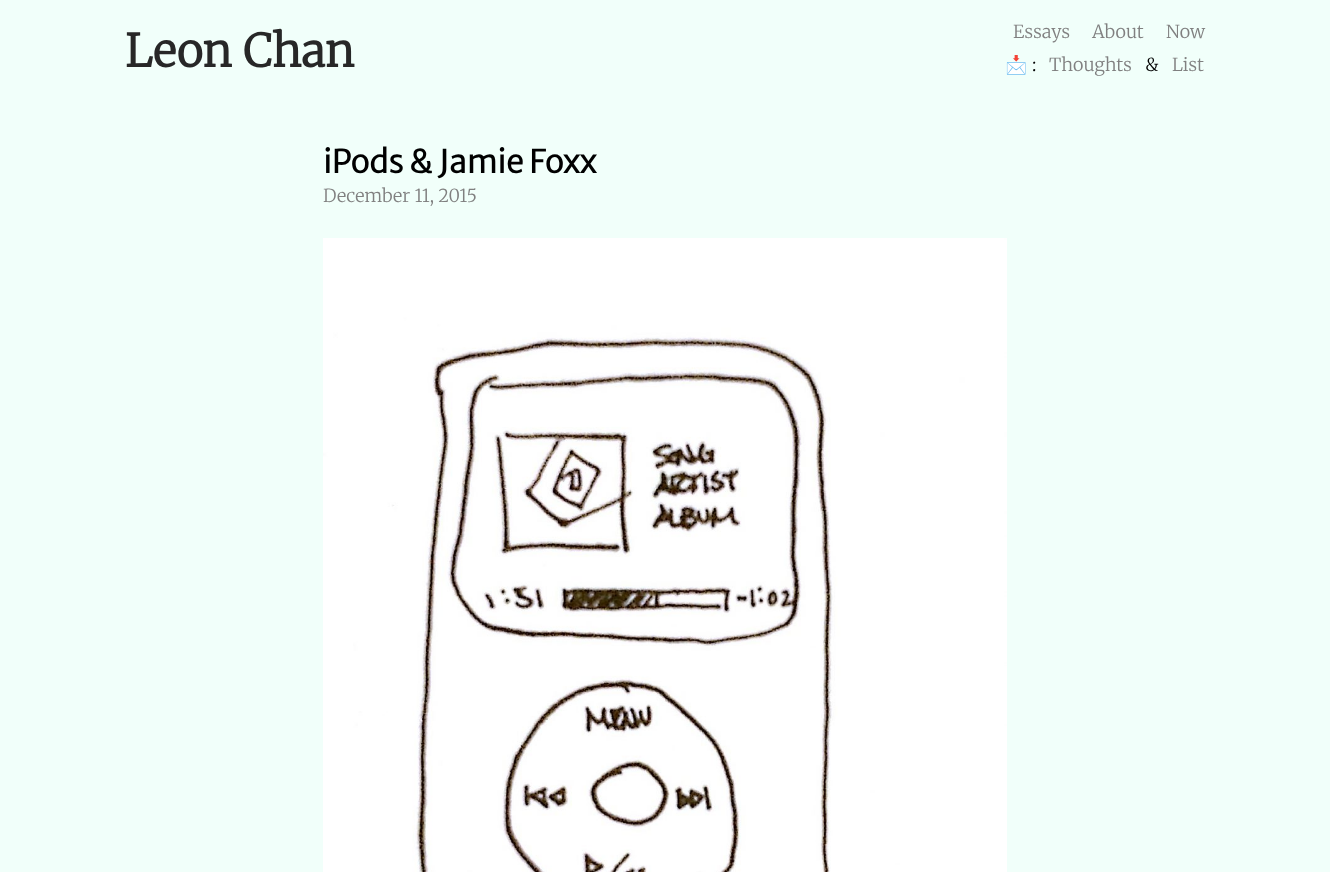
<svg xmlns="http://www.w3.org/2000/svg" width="1330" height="872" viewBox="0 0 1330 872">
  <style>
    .t1 { font: bold 45px Merriweather; fill: #272727; }
    .t2 { font: 300 18px Merriweather; fill: #808080; }
    .t3 { font: 18px Noto Color Emoji; fill: #000; }
    .t4 { font: 300 18px Merriweather; fill: #000; }
    .t5 { font: bold 31.5px Merriweather Sans; fill: #000; }
  </style>
  <rect width="100%" height="100%" fill="#f1fffa"/>
  <text x="125" y="67" class="t1">Leon Chan</text>
  <text x="1013" y="38" class="t2">Essays</text>
  <text x="1092" y="38" class="t2">About</text>
  <text x="1166" y="38" class="t2">Now</text>
  <text x="1005" y="71" class="t3">📩</text>
  <text x="1032" y="71" class="t4">:</text>
  <text x="1049" y="71" class="t2">Thoughts</text>
  <text x="1145" y="71" class="t4">&amp;</text>
  <text x="1172" y="71" class="t2">List</text>
  <text x="323" y="173" class="t5">iPods &amp; Jamie Foxx</text>
  <text x="323" y="202" class="t2">December 11, 2015</text>
  <image x="323" y="238" width="684" height="634" href="images/1.png"/>
</svg>
